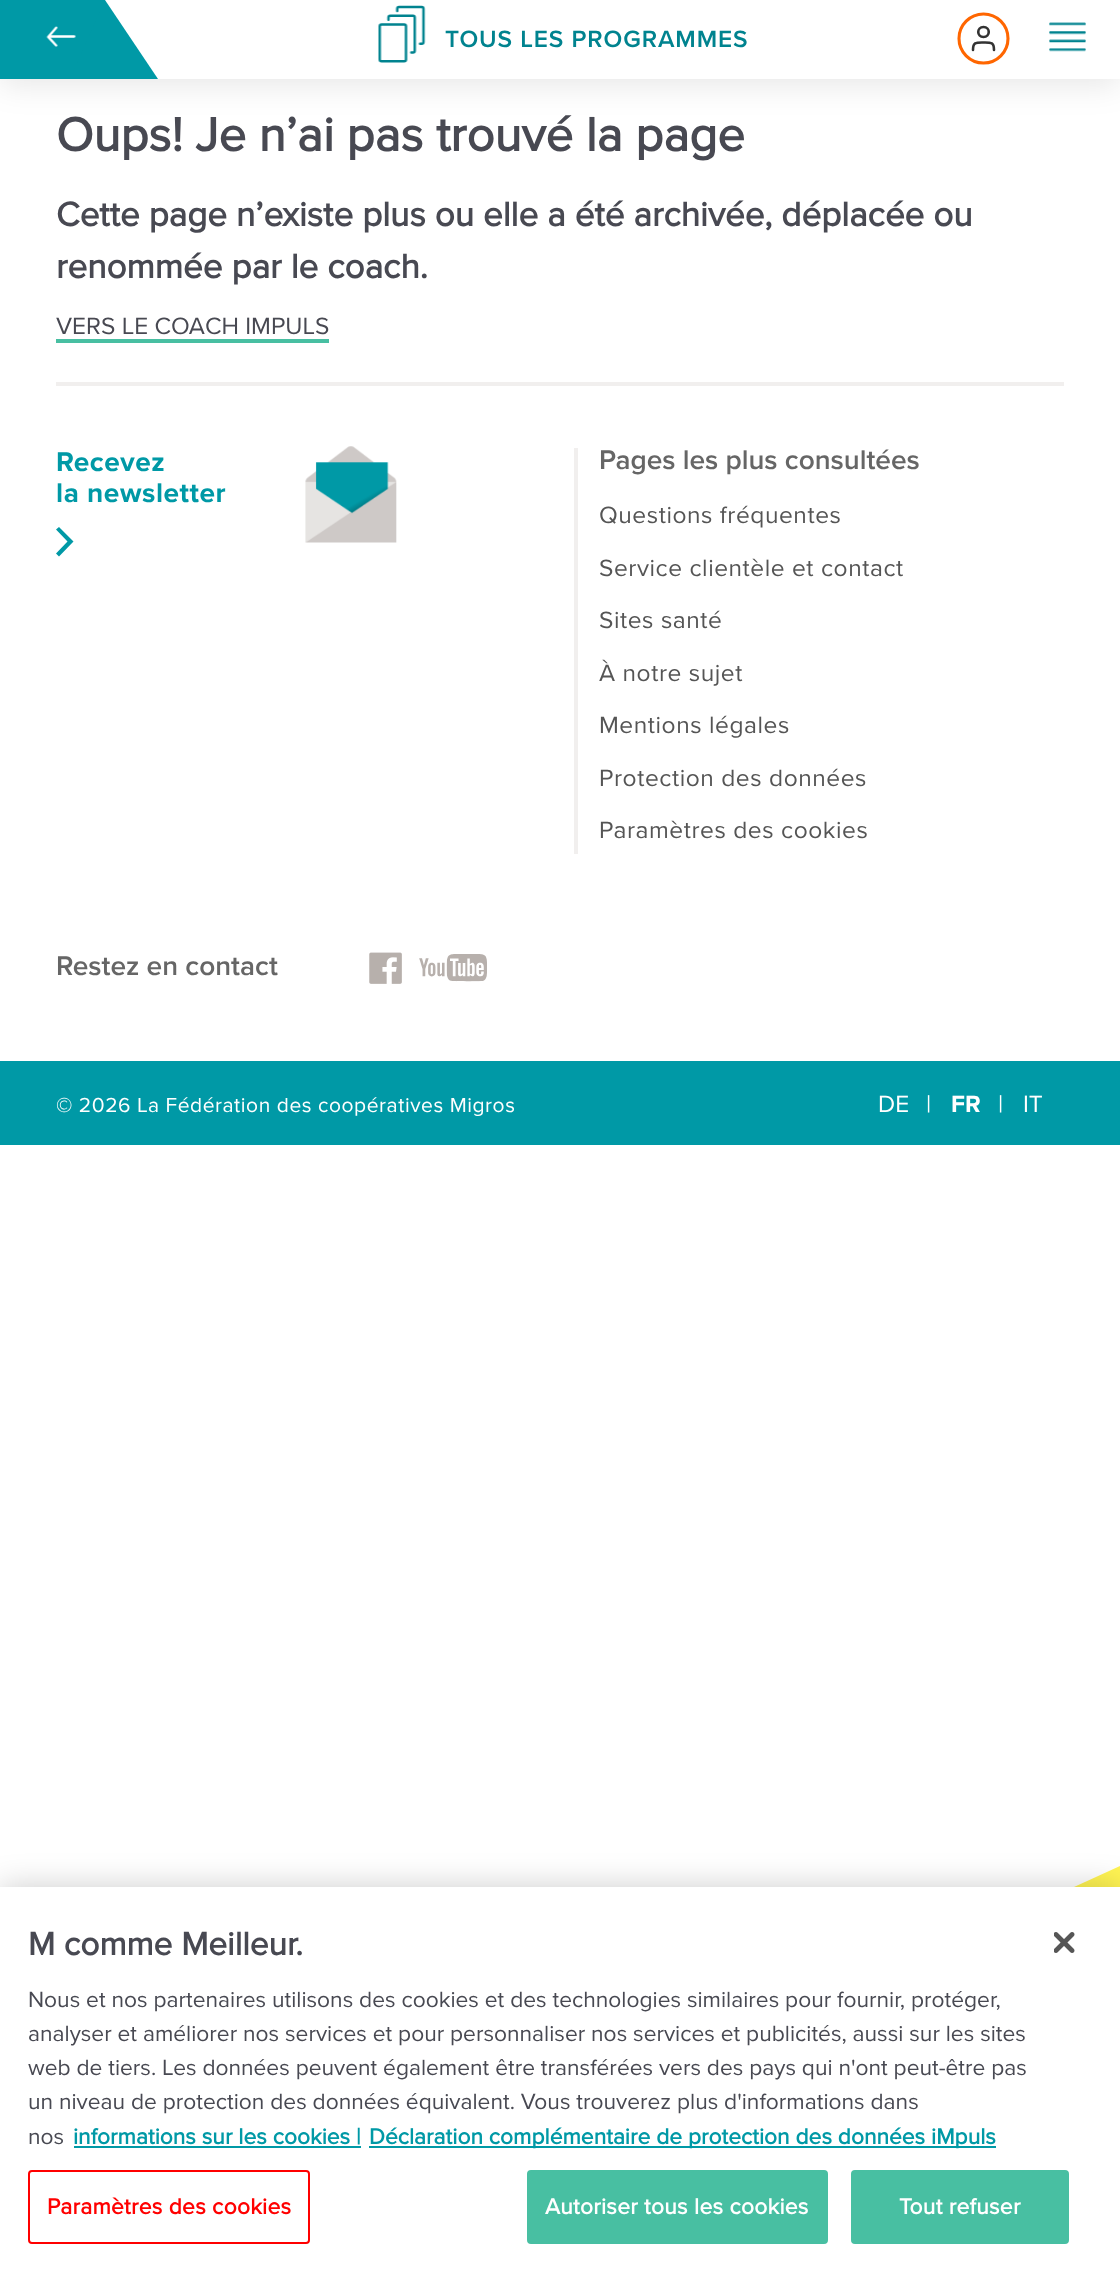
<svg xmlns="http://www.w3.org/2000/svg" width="1120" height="2269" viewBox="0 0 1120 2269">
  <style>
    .t1 { font: 600 24.5px 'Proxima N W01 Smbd'; letter-spacing: 0.9px; fill: #00838f; }
    .t2 { font: bold 49px 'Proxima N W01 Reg'; fill: #484952; }
    .t3 { font: bold 35px 'Proxima N W01 Reg'; fill: #484952; }
    .t4 { font: 24.5px 'Proxima N W01 Reg'; fill: #484952; }
    .t5 { font: bold 28px 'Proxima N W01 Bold'; letter-spacing: 0.55px; fill: #0099a6; }
    .t6 { font: 600 28px 'Proxima N W01 Smbd'; fill: #666; }
    .t7 { font: 24.5px 'Proxima N W01 Reg'; letter-spacing: 0.55px; fill: #555; }
    .t8 { font: 21px 'Proxima N W01 Reg'; letter-spacing: 0.55px; fill: #fff; }
    .t9 { font: 24.5px 'Proxima N W01 Reg'; fill: #fff; }
    .t10 { font: bold 24.5px 'Proxima N W01 Bold'; fill: #fff; }
    .t11 { font: bold 33.5px 'Proxima N W01 Reg'; fill: #484952; }
    .t12 { font: 22.75px 'Proxima N W01 Reg'; fill: #484952; }
    .t13 { font: bold 22.75px 'Proxima N W01 Reg'; fill: #0099a6; }
    .t14 { font: bold 22.75px 'Proxima N W01 Reg'; letter-spacing: 0.25px; fill: #f00; }
    .t15 { font: bold 22.75px 'Proxima N W01 Reg'; letter-spacing: 0.25px; fill: #fff; }
  </style>
  <rect width="100%" height="100%" fill="#fff"/>
  <rect x="0" y="5" width="1120" height="79" fill="#0000001a" filter="blur(16px)"/>
  <rect x="105" y="0" width="1015" height="79" fill="#fff"/>
  <rect x="0" y="0" width="105" height="79" fill="#0099a6"/>
  <image x="46" y="26" width="30" height="21" href="images/1.png"/>
  <path d="M158 79H70L105 0Z" fill="#0099a6"/>
  <image x="378" y="5" width="48" height="58" href="images/2.png"/>
  <text x="445" y="47" class="t1">TOUS LES PROGRAMMES</text>
  <circle cx="983.5" cy="38.5" r="24.5" fill="none" stroke="#f60" stroke-width="3.1"/>
  <path d="M994 50C994 42 991 42.5 983.5 42.5C976 42.5 973 42 973 50M983.5 37C990.5 37 990.5 27 983.5 27C976.5 27 976.5 37 983.5 37Z" fill="none" stroke="#333" stroke-width="2.6" stroke-linecap="round" stroke-linejoin="round"/>
  <image x="1049" y="22" width="37" height="30" href="images/3.png"/>
  <text x="56" y="151" class="t2">Oups! Je n’ai pas trouvé la page</text>
  <text x="56" y="226" class="t3">Cette page n’existe plus ou elle a été archivée, déplacée ou</text>
  <text x="56" y="278" class="t3">renommée par le coach.</text>
  <text x="56" y="334" class="t4">VERS LE COACH IMPULS</text>
  <rect x="56" y="339" width="273" height="4" fill="#48bfa2"/>
  <rect x="56" y="382" width="1008" height="4" fill="#f1efee"/>
  <text x="56" y="471" class="t5">Recevez</text>
  <text x="56" y="502" class="t5">la newsletter</text>
  <path d="M59 527L56 529.5L67.5 541.5L56 553.5L59 556.5L73.5 541.5Z" fill="#0099a6" fill-rule="evenodd"/>
  <image x="305" y="446" width="92" height="97" href="images/4.png"/>
  <rect x="574" y="448" width="4" height="406" fill="#f1efee"/>
  <text x="599" y="469" class="t6">Pages les plus consultées</text>
  <text x="599" y="523" class="t7">Questions fréquentes</text>
  <text x="599" y="576" class="t7">Service clientèle et contact</text>
  <text x="599" y="628" class="t7">Sites santé</text>
  <text x="599" y="681" class="t7">À notre sujet</text>
  <text x="599" y="733" class="t7">Mentions légales</text>
  <text x="599" y="786" class="t7">Protection des données</text>
  <text x="599" y="838" class="t7">Paramètres des cookies</text>
  <text x="56" y="975" class="t6">Restez en contact</text>
  <image x="369" y="952" width="33" height="32" href="images/5.png"/>
  <image x="419" y="954" width="68" height="28" href="images/6.png"/>
  <rect x="0" y="1061" width="1120" height="84" fill="#0099a6"/>
  <text x="56" y="1112" class="t8">© 2026 La Fédération des coopératives Migros</text>
  <text x="878" y="1112" class="t9">DE</text>
  <text x="926" y="1112" class="t9">|</text>
  <text x="951" y="1112" class="t10">FR</text>
  <text x="998" y="1112" class="t9">|</text>
  <text x="1023" y="1112" class="t9">IT</text>
  <path d="M-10 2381L1120 1866L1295 2249L165 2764Z" fill="#fff453"/>
  <rect x="0" y="1887" width="1120" height="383" fill="#00000033" filter="blur(16px)"/>
  <rect x="0" y="1887" width="1120" height="382" fill="#fff"/>
  <text x="28" y="1955" class="t11">M comme Meilleur.</text>
  <text x="28" y="2007" class="t12">Nous et nos partenaires utilisons des cookies et des technologies similaires pour fournir, protéger,</text>
  <text x="28" y="2041" class="t12">analyser et améliorer nos services et pour personnaliser nos services et publicités, aussi sur les sites</text>
  <text x="28" y="2075" class="t12">web de tiers. Les données peuvent également être transférées vers des pays qui n'ont peut-être pas</text>
  <text x="28" y="2109" class="t12">un niveau de protection des données équivalent. Vous trouverez plus d'informations dans</text>
  <text x="28" y="2144" class="t12">nos</text>
  <text x="73" y="2144" class="t13">informations sur les cookies |</text>
  <rect x="74" y="2146" width="287" height="2" fill="#0099a6"/>
  <rect x="369" y="2146" width="627" height="2" fill="#0099a6"/>
  <text x="369" y="2144" class="t13">Déclaration complémentaire de protection des données iMpuls</text>
  <rect x="29" y="2171" width="280" height="72" rx="3" fill="none" stroke="#f00" stroke-width="2"/>
  <text x="47" y="2214" class="t14">Paramètres des cookies</text>
  <rect x="528" y="2171" width="299" height="72" rx="3" fill="#48bfa2" stroke="#48bfa2" stroke-width="2"/>
  <text x="545" y="2214" class="t15">Autoriser tous les cookies</text>
  <rect x="852" y="2171" width="216" height="72" rx="3" fill="#48bfa2" stroke="#48bfa2" stroke-width="2"/>
  <text x="899" y="2214" class="t15">Tout refuser</text>
  <image x="1054" y="1932" width="21" height="21" href="images/7.png"/>
</svg>
